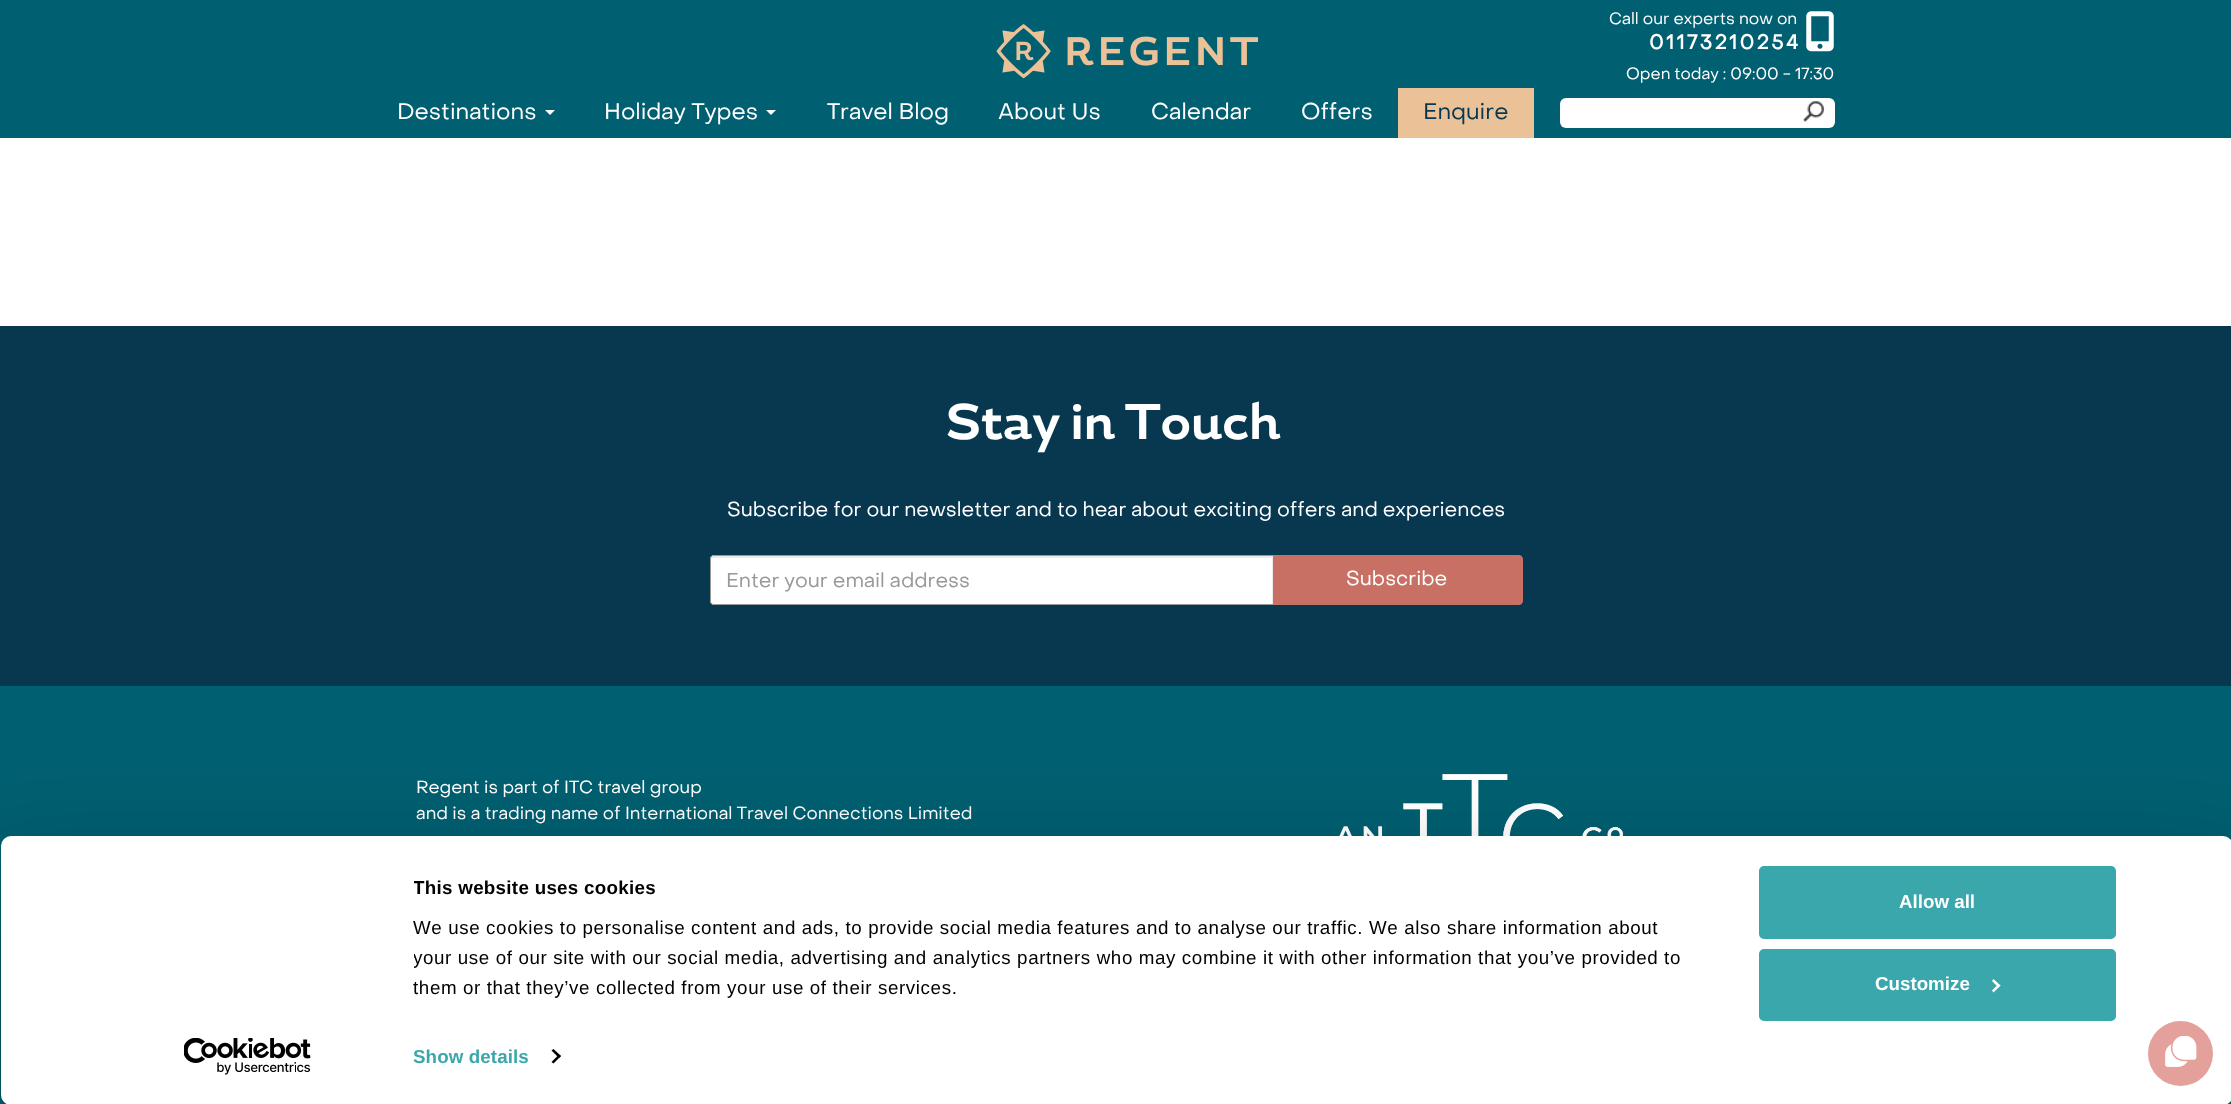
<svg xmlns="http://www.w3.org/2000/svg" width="2231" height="1104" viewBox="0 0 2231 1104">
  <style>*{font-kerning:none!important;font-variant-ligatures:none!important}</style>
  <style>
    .t1 { font: 16.25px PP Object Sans; fill: #fff; }
    .t2 { font: bold 20px PP Object Sans; letter-spacing: 2.5px; fill: #fff; }
    .t3 { font: 16px PP Object Sans; fill: #fff; }
    .t4 { font: 22.5px PP Object Sans; fill: #fff; }
    .t5 { font: 22.5px PP Object Sans; fill: #083850; }
    .t6 { font: bold 50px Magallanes; fill: #fff; }
    .t7 { font: 20px PP Object Sans; fill: #fff; }
    .t8 { font: 20px PP Object Sans; fill: #999; }
    .t9 { font: 17.5px PP Object Sans; fill: #fff; }
    .t10 { font: bold 18.75px Liberation Sans; letter-spacing: 0.3px; fill: #000; }
    .t11 { font: 18.75px Liberation Sans; letter-spacing: 0.62px; fill: #000; }
    .t12 { font: bold 18.75px Liberation Sans; letter-spacing: 0.1px; fill: #39a7ab; }
    .t13 { font: bold 18.75px Liberation Sans; fill: #fff; }
  </style>
  <defs>
    <clipPath id="clip1"><rect x="414" y="874" width="1310" height="129"/></clipPath>
  </defs>
  <rect width="100%" height="100%" fill="#fff"/>
  <rect x="0" y="0" width="2231" height="138" fill="#005f70"/>
  <image x="996" y="24" width="263" height="55" href="images/1.png"/>
  <text x="1609" y="24" class="t1">Call our experts now on</text>
  <image x="1806" y="11" width="28" height="41" href="images/2.png"/>
  <text x="1649" y="49" class="t2">01173210254</text>
  <text x="1626" y="79" class="t3">Open today : 09:00 - 17:30</text>
  <text x="397" y="119" class="t4">Destinations</text>
  <path d="M545 110H555L550 115Z" fill="#fff"/>
  <text x="604" y="119" class="t4">Holiday Types</text>
  <path d="M766 110H776L771 115Z" fill="#fff"/>
  <text x="827" y="119" class="t4">Travel Blog</text>
  <text x="998" y="119" class="t4">About Us</text>
  <text x="1151" y="119" class="t4">Calendar</text>
  <text x="1301" y="119" class="t4">Offers</text>
  <rect x="1398" y="88" width="136" height="50" fill="#ebc298"/>
  <text x="1423" y="119" class="t5">Enquire</text>
  <rect x="1560" y="98" width="275" height="30" rx="6" fill="#fff"/>
  <image x="1803" y="101" width="21" height="21" href="images/3.png"/>
  <rect x="0" y="326" width="2231" height="360" fill="#083850"/>
  <text x="946" y="439" word-spacing="-2" class="t6">Stay in Touch</text>
  <text x="727" y="516" class="t7">Subscribe for our newsletter and to hear about exciting offers and experiences</text>
  <path d="M714 555H1274V605H714C712 605 710 603 710 601V559C710 557 712 555 714 555Z" fill="#fff"/>
  <path d="M714 556C711 556 711 558 711 560L712 558H1272V604H1273V556Z" fill="#ececec"/>
  <path d="M714 555.5H1273.5V604.5H714C712 604.5 710.5 603 710.5 601V559C710.5 557 712 555.5 714 555.5Z" fill="none" stroke="#999"/>
  <text x="726" y="587" class="t8">Enter your email address</text>
  <path d="M1273 555H1519C1521 555 1523 557 1523 559V601C1523 603 1521 605 1519 605H1273Z" fill="#c97064"/>
  <text x="1346" y="585" class="t7">Subscribe</text>
  <rect x="0" y="686" width="2231" height="418" fill="#005f70"/>
  <text x="416" y="793" class="t9">Regent is part of ITC travel group</text>
  <text x="416" y="819" class="t9">and is a trading name of International Travel Connections Limited</text>
  <image x="1339" y="774" width="284" height="62" href="images/4.png"/>
  <rect x="1" y="874" width="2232" height="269" rx="10" fill="#0000004d" filter="blur(44px)"/>
  <rect x="1" y="836" width="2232" height="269" rx="10" fill="#fff"/>
  <g clip-path="url(#clip1)">
    <text x="413" y="894" class="t10">This website uses cookies</text>
  </g>
  <text x="413" y="934" class="t11">We use cookies to personalise content and ads, to provide social media features and to analyse our traffic. We also share information about</text>
  <g clip-path="url(#clip1)">
    <text x="413" y="964" class="t11">your use of our site with our social media, advertising and analytics partners who may combine it with other information that you’ve provided to</text>
  </g>
  <text x="413" y="994" class="t11">them or that they’ve collected from your use of their services.</text>
  <text x="413" y="1063" class="t12">Show details</text>
  <path d="M553.5 1049L561 1056L559 1058L551.5 1050.5Z" fill="#000"/>
  <path d="M559 1054.5L561 1056L553.5 1063.5L551.5 1062Z" fill="#000"/>
  <rect x="1760.5" y="867.5" width="354" height="70" rx="3.5" fill="#39a7ab" stroke="#39a7ab" stroke-width="3"/>
  <text x="1899" y="908" class="t13">Allow all</text>
  <rect x="1760.5" y="950.5" width="354" height="69" rx="3.5" fill="#39a7ab" stroke="#39a7ab" stroke-width="3"/>
  <text x="1875" y="990" class="t13">Customize</text>
  <path d="M1993.5 979L2000.5 985.5L1998.5 987.5L1992 981Z" fill="#fff"/>
  <path d="M1998.5 984L2000.5 985.5L1993.5 992.5L1992 990.5Z" fill="#fff"/>
  <image x="184" y="1038" width="127" height="37" href="images/5.png"/>
  <circle cx="2180.5" cy="1053.5" r="32.5" fill="#e4a19c"/>
  <image x="2165" y="1036" width="32" height="31" href="images/6.png"/>
</svg>
